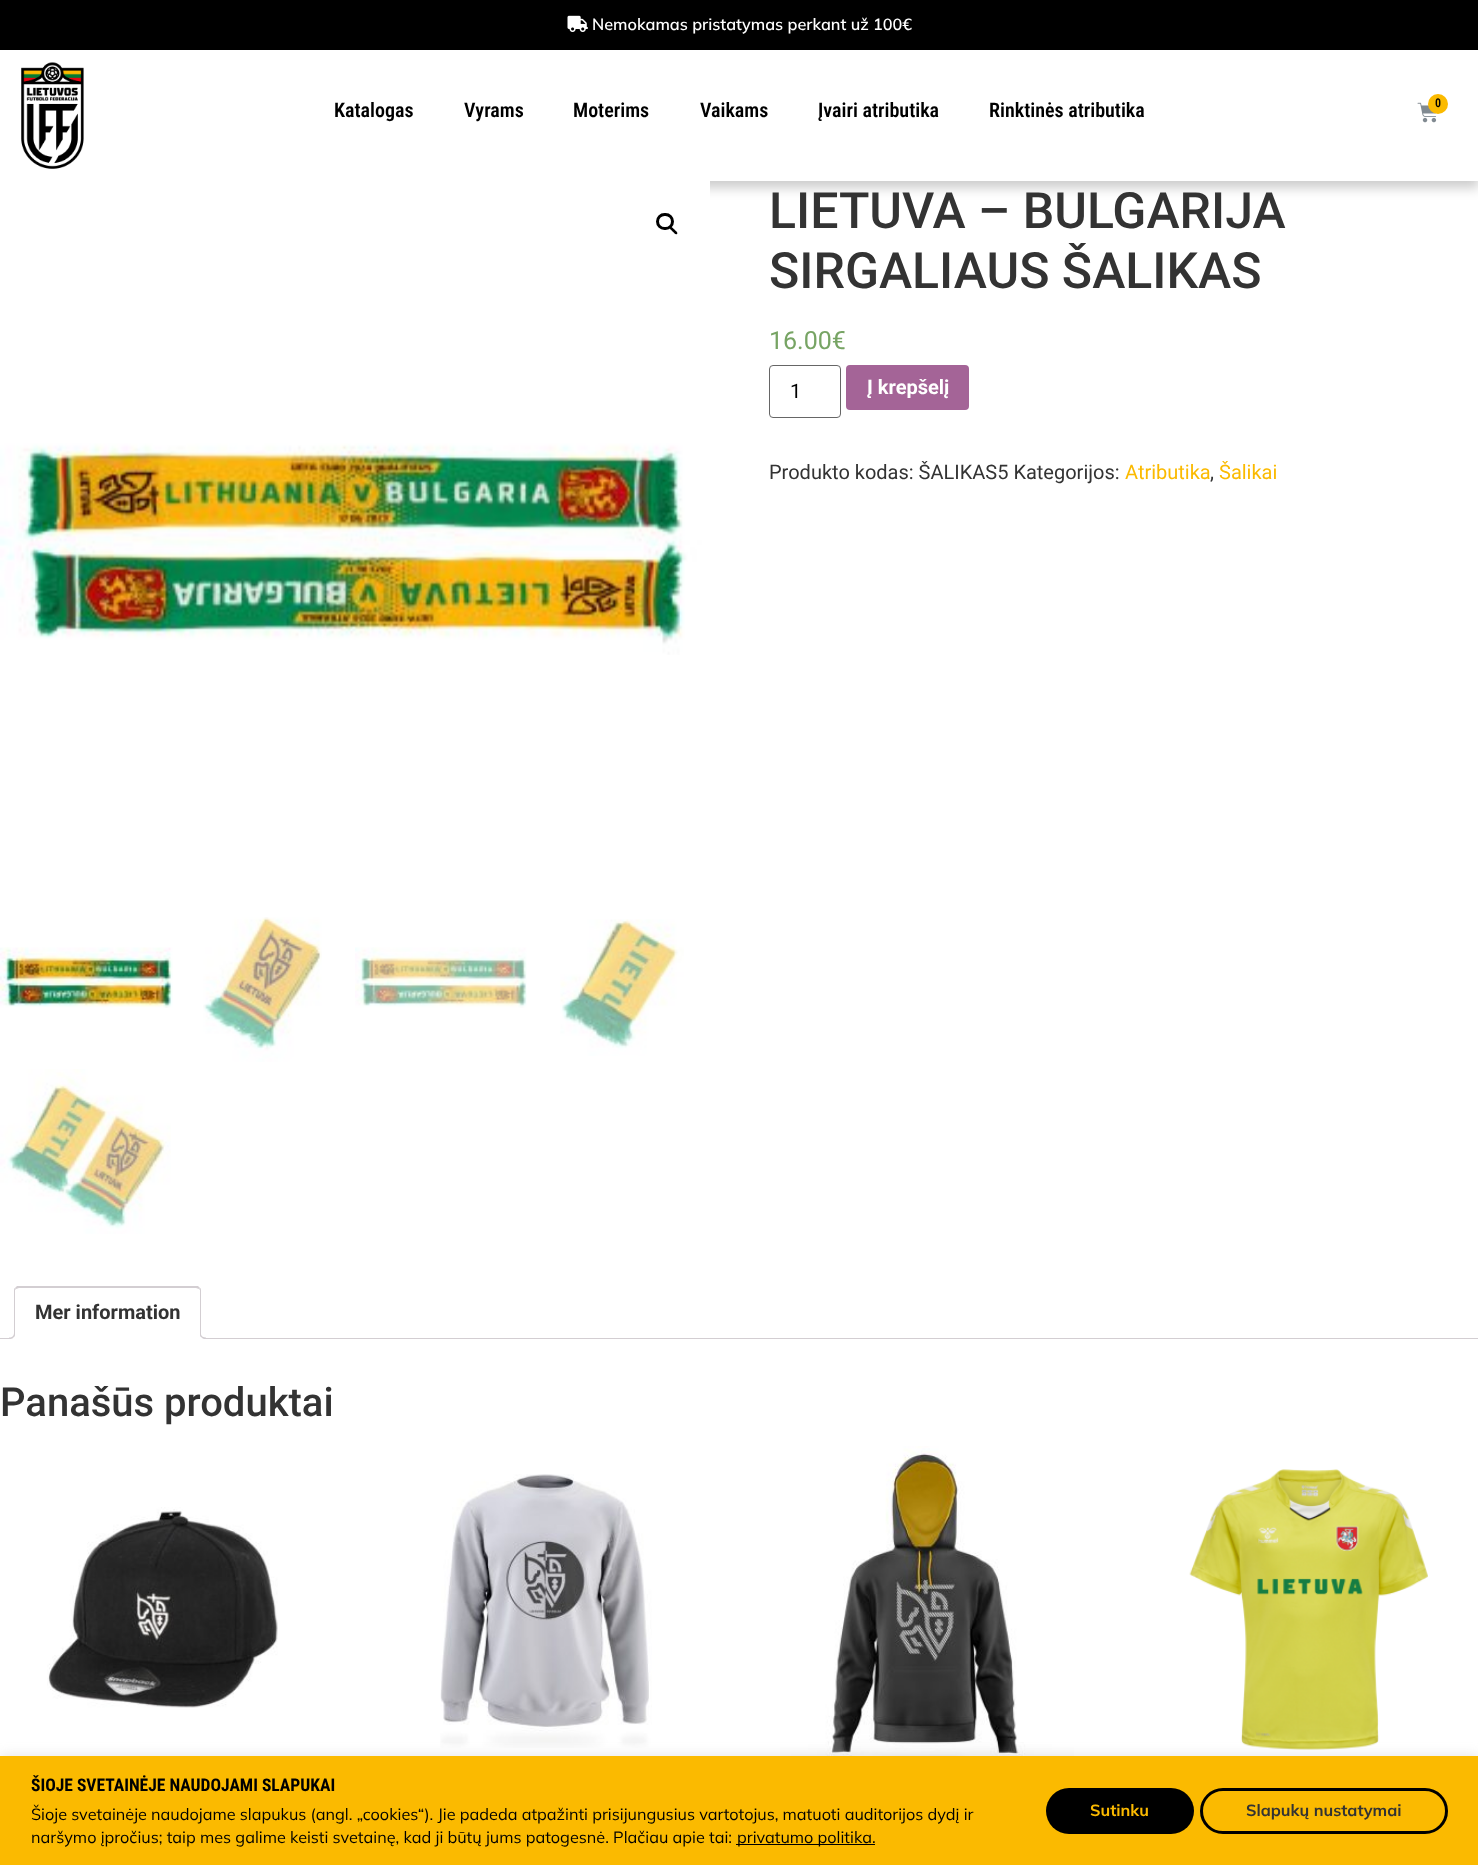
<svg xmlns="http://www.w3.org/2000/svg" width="1478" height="1865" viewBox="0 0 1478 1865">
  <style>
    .t1 { font: 600 16.25px Mulish; fill: #fff; }
    .t2 { font: 600 20px Roboto Condensed; fill: #000; }
    .t3 { font: 600 12px Roboto Condensed; fill: #000; }
    .t4 { font: 500 50px Roboto; fill: #333; }
    .t5 { font: 25px Roboto; fill: #77a464; }
    .t6 { font: 20px Roboto; fill: #000; }
    .t7 { font: bold 20px Roboto; fill: #fff; }
    .t8 { font: 20px Roboto; fill: #333; }
    .t9 { font: 20px Roboto; fill: #fbba00; }
    .t10 { font: bold 20px Roboto; fill: #333; }
    .t11 { font: 500 40px Roboto; fill: #333; }
    .t12 { font: bold 17.5px Roboto Condensed; fill: #000; }
    .t13 { font: 16.25px Mulish; fill: #000; }
    .t14 { font: bold 16.25px Mulish; fill: #fbba00; }
    .t15 { font: bold 16.25px Mulish; fill: #333; }
  </style>
  <defs>
    <clipPath id="clip1"><path d="M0 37H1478V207H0ZM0 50H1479V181H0Z" clip-rule="evenodd"/></clipPath>
    <clipPath id="clip2"><rect x="0" y="1286" width="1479" height="53"/></clipPath>
  </defs>
  <rect width="100%" height="100%" fill="#fff"/>
  <rect x="0" y="0" width="1478" height="50" fill="#000"/>
  <image x="567" y="15" width="21" height="17" href="images/1.png"/>
  <text x="592" y="30" class="t1">Nemokamas pristatymas perkant už 100€</text>
  <g clip-path="url(#clip1)">
    <rect x="0" y="56" width="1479" height="132" fill="#00000033" filter="blur(6px)"/>
  </g>
  <image x="21" y="62" width="63" height="107" href="images/2.png"/>
  <text x="334" y="117" class="t2">Katalogas</text>
  <text x="464" y="117" class="t2">Vyrams</text>
  <text x="573" y="117" class="t2">Moterims</text>
  <text x="700" y="117" class="t2">Vaikams</text>
  <text x="818" y="117" class="t2">Įvairi atributika</text>
  <text x="989" y="117" class="t2">Rinktinės atributika</text>
  <image x="1417" y="102" width="20" height="21" href="images/3.png"/>
  <circle cx="1438" cy="104" r="10" fill="#fbba00"/>
  <text x="1435" y="107" class="t3">0</text>
  <image x="0" y="181" width="710" height="474" href="images/4.png"/>
  <rect x="657.5" y="214.5" width="15" height="14" rx="7" fill="none" stroke="#000" stroke-width="3"/>
  <path d="M670 227C671.5 225.5 673.5 229 674.5 229.5C675 230.5 678.5 232.5 677 234C675.5 235.5 673.5 232 672.5 231.5C672 230.5 668.5 228.5 670 227Z" fill="#000"/>
  <image x="0" y="947" width="173" height="61" href="images/5.png"/>
  <image x="203" y="917" width="119" height="145" href="images/6.png"/>
  <image x="355" y="947" width="172" height="61" href="images/7.png"/>
  <image x="560" y="919" width="124" height="137" href="images/8.png"/>
  <image x="0" y="1069" width="171" height="165" href="images/9.png"/>
  <text x="769" y="228" class="t4">LIETUVA – BULGARIJA</text>
  <text x="769" y="288" class="t4">SIRGALIAUS ŠALIKAS</text>
  <text x="769" y="349" class="t5">16.00€</text>
  <rect x="769.5" y="365.5" width="71" height="52" rx="3.5" fill="none" stroke="#666"/>
  <text x="790" y="398" class="t6">1</text>
  <rect x="846" y="365" width="123" height="45" rx="4" fill="#a46497"/>
  <text x="867" y="394" class="t7">Į krepšelį</text>
  <text x="769" y="479" class="t8">Produkto kodas: ŠALIKAS5 Kategorijos:</text>
  <text x="1125" y="479" class="t9">Atributika</text>
  <text x="1210" y="479" class="t8">,</text>
  <text x="1219" y="479" class="t9">Šalikai</text>
  <rect x="0" y="1338" width="1478" height="1" fill="#d3ced2"/>
  <path d="M19 1286H196C199 1286 201 1288 201 1291V1339H14V1291C14 1288 16 1286 19 1286Z" fill="#fff"/>
  <path d="M19 1288L16 1289L15 1288L17 1286H198L200 1288L199 1289L196 1288Z" fill="#d3ced2"/>
  <path d="M200 1288C201 1288 201 1290 201 1291V1338H200V1290L199 1289Z" fill="#d3ced2"/>
  <path d="M14 1338V1291C14 1290 14 1288 15 1288L16 1289L15 1290V1338Z" fill="#d3ced2"/>
  <text x="35" y="1319" class="t10">Mer information</text>
  <g clip-path="url(#clip2)">
    <path d="M11 1338.5V1341C15.5 1341 18 1340 18 1335H15C14.5 1337 13 1338.5 11 1338.5Z" fill="#fff"/>
  </g>
  <path d="M9 1332.5H15C15 1337 13 1339 9 1339ZM9 1332.5H14C14 1336 12.5 1337.5 9 1337.5Z" fill="#d3ced2" fill-rule="evenodd"/>
  <g clip-path="url(#clip2)">
    <path d="M198 1335C198 1339 200 1341 204 1341V1338.5C202 1338.5 200.5 1337 200 1335Z" fill="#fff"/>
  </g>
  <path d="M200 1332.5H206V1339C203 1339 200 1337.5 200 1334ZM201 1332.5H206V1337.5C204 1337.5 201 1336.5 201 1334Z" fill="#d3ced2" fill-rule="evenodd"/>
  <text x="0" y="1416" class="t11">Panašūs produktai</text>
  <image x="47" y="1507" width="231" height="201" href="images/10.png"/>
  <image x="440" y="1474" width="212" height="274" href="images/11.png"/>
  <image x="780" y="1446" width="294" height="310" href="images/12.png"/>
  <image x="1189" y="1469" width="239" height="281" href="images/13.png"/>
  <rect x="0" y="1755" width="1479" height="109" fill="#acabab4d" filter="blur(6px)"/>
  <rect x="0" y="1756" width="1478" height="109" fill="#fbba00"/>
  <text x="31" y="1791" class="t12">ŠIOJE SVETAINĖJE NAUDOJAMI SLAPUKAI</text>
  <text x="31" y="1820" class="t13">Šioje svetainėje naudojame slapukus (angl. „cookies“). Jie padeda atpažinti prisijungusius vartotojus, matuoti auditorijos dydį ir</text>
  <text x="31" y="1843" class="t13">naršymo įpročius; taip mes galime keisti svetainę, kad ji būtų jums patogesnė. Plačiau apie tai:</text>
  <rect x="736" y="1844" width="139" height="1" fill="#000"/>
  <text x="737" y="1843" class="t13">privatumo politika.</text>
  <rect x="1046" y="1788" width="148" height="46" rx="23" fill="#000"/>
  <text x="1090" y="1816" class="t14">Sutinku</text>
  <rect x="1201.5" y="1789.5" width="245" height="43" rx="21.5" fill="none" stroke="#000" stroke-width="3"/>
  <text x="1246" y="1816" class="t15">Slapukų nustatymai</text>
</svg>
